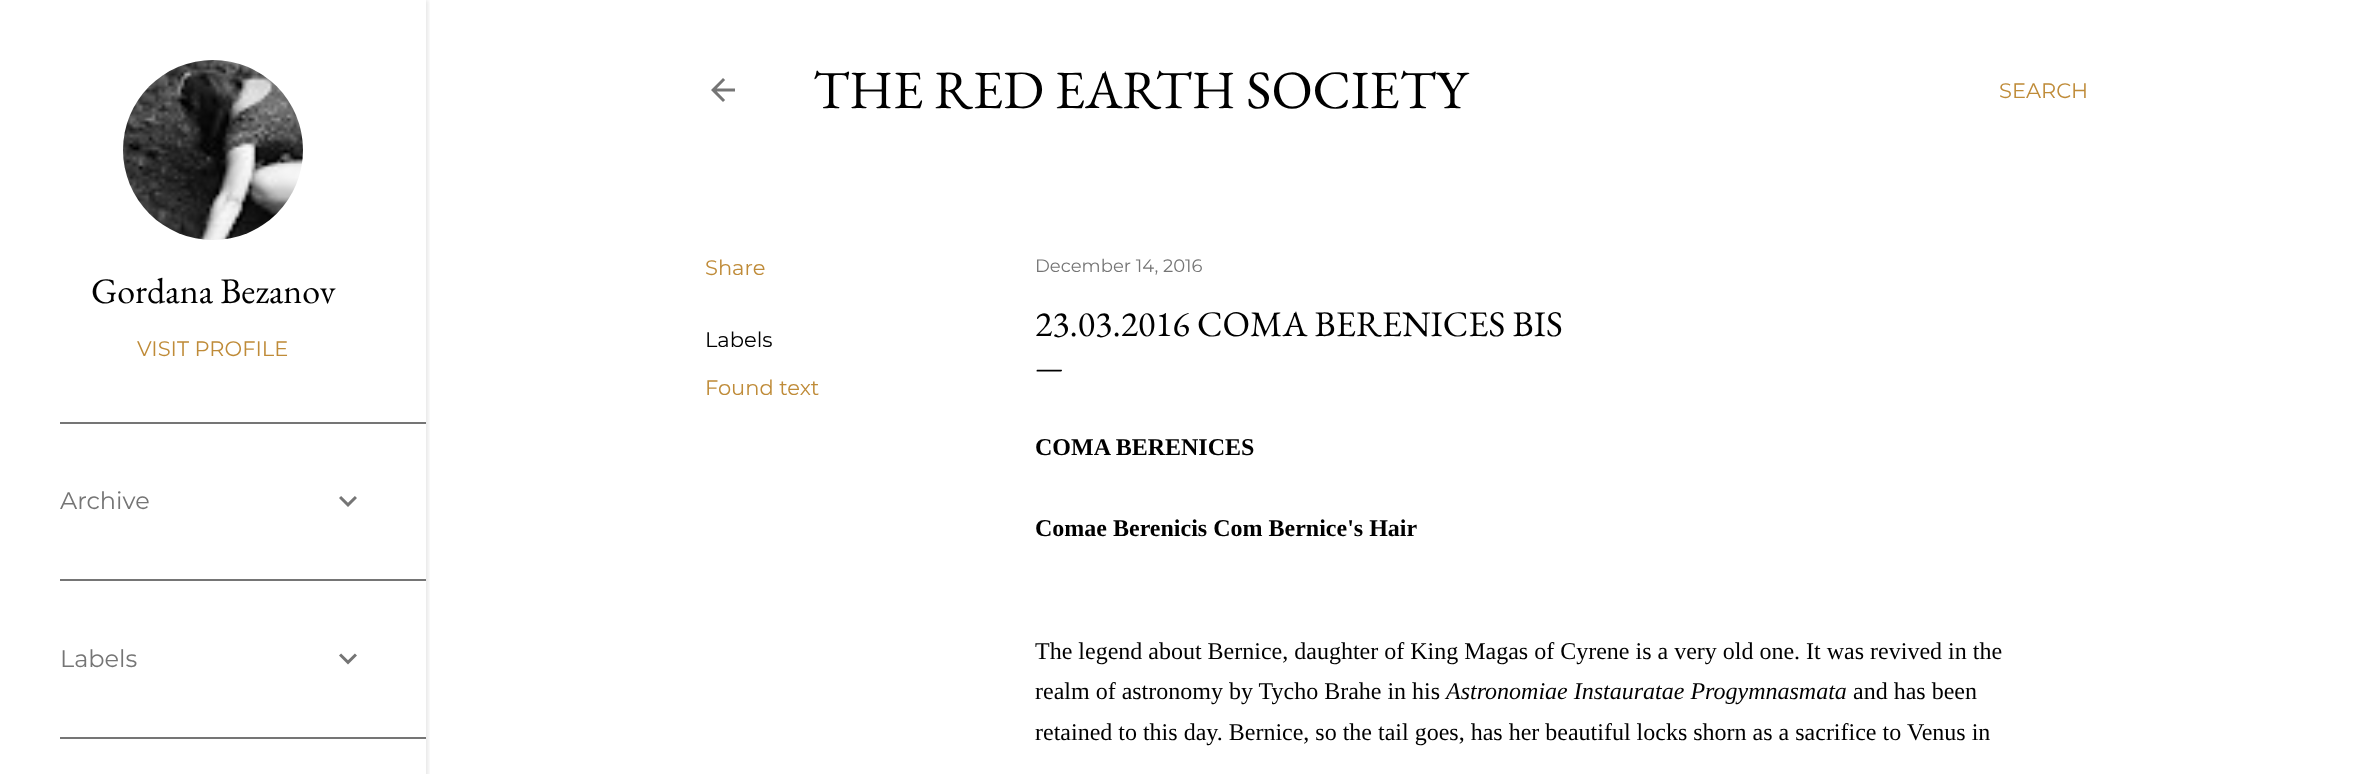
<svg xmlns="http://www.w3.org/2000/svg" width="2367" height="774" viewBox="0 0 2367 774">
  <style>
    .t1 { font: 36px EB Garamond; fill: #000; }
    .t2 { font: 21px Montserrat; fill: #bf8b38; }
    .t3 { font: 24px Montserrat; fill: #757575; }
    .t4 { font: 54px EB Garamond; fill: #000; }
    .t5 { font: 21px Montserrat; fill: #000; }
    .t6 { font: 18px Montserrat; fill: #757575; }
    .t7 { font: 30px EB Garamond; fill: #000; }
    .t8 { font: bold 24px Liberation Serif; fill: #000; }
    .t9 { font: 24px Liberation Serif; fill: #000; }
    .t10 { font: italic 24px Liberation Serif; fill: #000; }
  </style>
  <defs>
    <clipPath id="clip1"><rect x="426" y="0" width="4" height="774"/></clipPath>
  </defs>
  <rect width="100%" height="100%" fill="#fff"/>
  <g clip-path="url(#clip1)">
    <rect x="2" y="0" width="426" height="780" fill="#0000001a" filter="blur(2px)"/>
  </g>
  <image x="123" y="60" width="180" height="180" href="images/1.png"/>
  <text x="91" y="303" class="t1">Gordana Bezanov</text>
  <text x="137" y="356" class="t2">VISIT PROFILE</text>
  <rect x="60" y="422" width="366" height="2" fill="#757575"/>
  <text x="60" y="509" class="t3">Archive</text>
  <image x="339" y="496" width="18" height="11" href="images/2.png"/>
  <rect x="60" y="579" width="366" height="2" fill="#757575"/>
  <text x="60" y="667" class="t3">Labels</text>
  <image x="339" y="653" width="18" height="12" href="images/3.png"/>
  <rect x="60" y="737" width="366" height="2" fill="#757575"/>
  <image x="711" y="78" width="24" height="24" href="images/4.png"/>
  <text x="813" y="108" class="t4">THE RED EARTH SOCIETY</text>
  <text x="1999" y="98" class="t2">SEARCH</text>
  <text x="705" y="275" class="t2">Share</text>
  <text x="705" y="347" class="t5">Labels</text>
  <text x="705" y="395" class="t2">Found text</text>
  <text x="1035" y="272" class="t6">December 14, 2016</text>
  <text x="1035" y="336" class="t1">23.03.2016 COMA BERENICES BIS</text>
  <text x="1035" y="377" class="t7">—</text>
  <text x="1035" y="455" class="t8">COMA BERENICES</text>
  <text x="1035" y="536" class="t8">Comae Berenicis Com Bernice's Hair</text>
  <text x="1035" y="659" class="t9">The legend about Bernice, daughter of King Magas of Cyrene is a very old one. It was revived in the</text>
  <text x="1035" y="699" class="t9">realm of astronomy by Tycho Brahe in his</text>
  <text x="1446" y="699" class="t10">Astronomiae Instauratae Progymnasmata</text>
  <text x="1853" y="699" class="t9">and has been</text>
  <text x="1035" y="740" class="t9">retained to this day. Bernice, so the tail goes, has her beautiful locks shorn as a sacrifice to</text>
  <text x="1907" y="740" class="t9">Venus in</text>
</svg>
